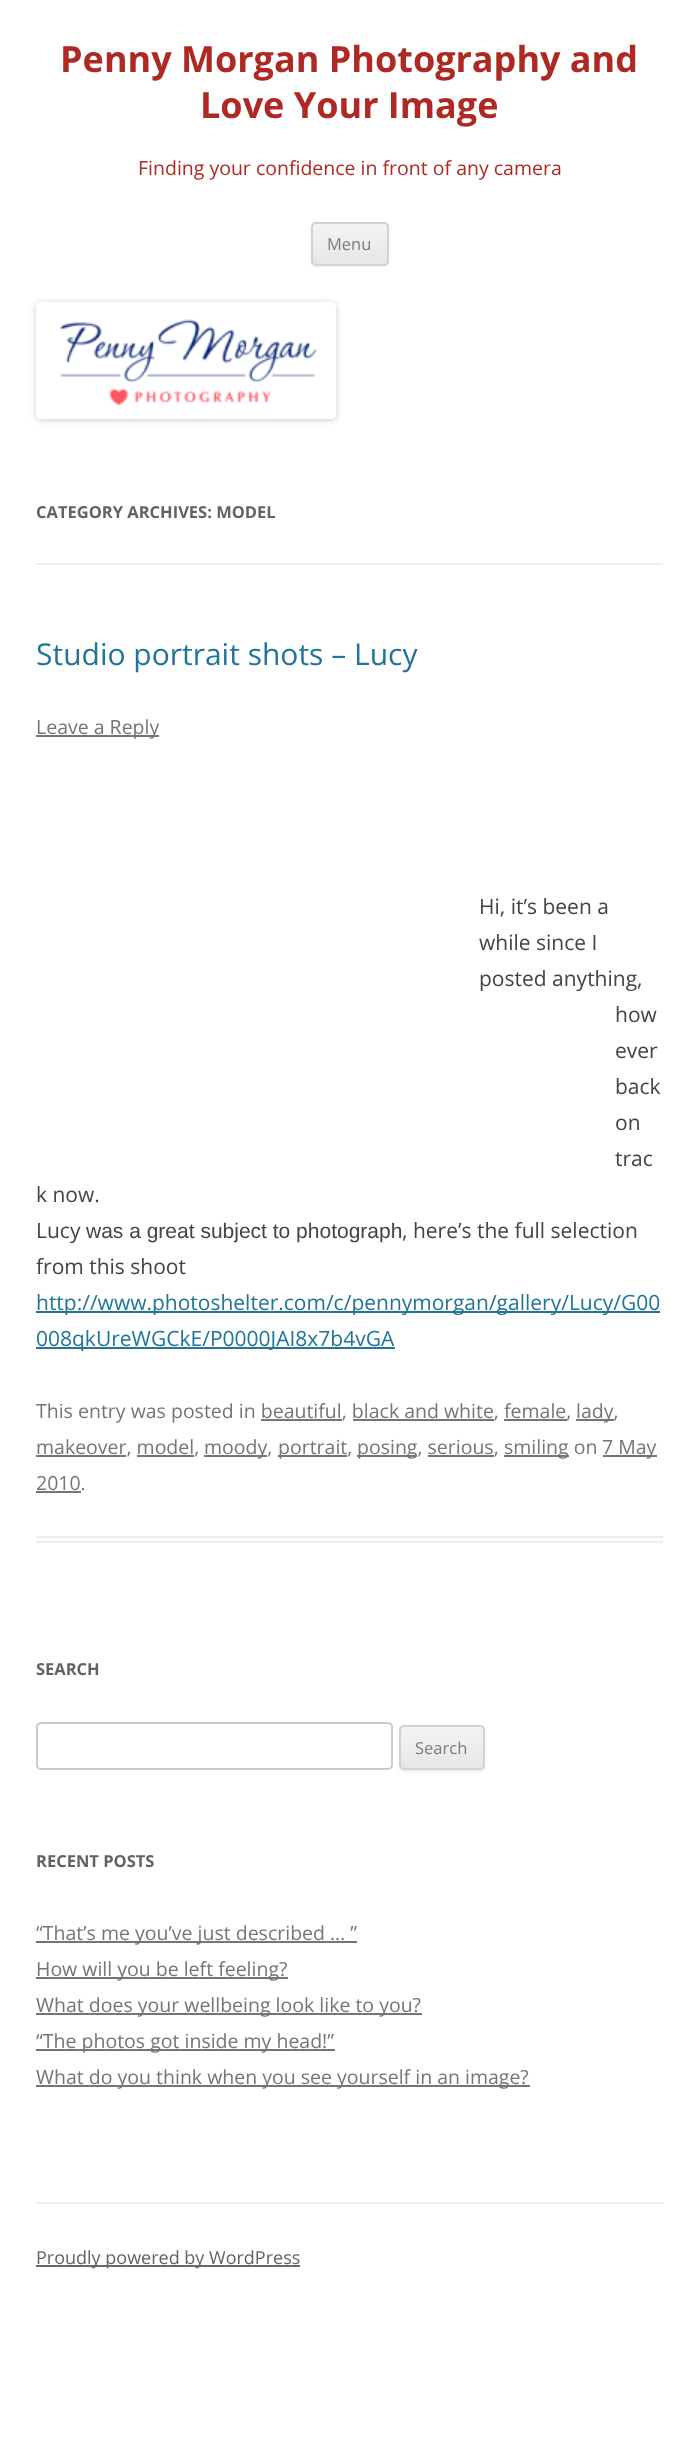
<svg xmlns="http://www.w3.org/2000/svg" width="699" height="2455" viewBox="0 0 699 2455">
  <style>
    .t1 { font: bold 36px Open Sans; fill: #af2924; }
    .t2 { font: 19.5px Open Sans; fill: #af2924; }
    .t3 { font: 16.5px Open Sans; fill: #7c7c7c; }
    .t4 { font: bold 16.5px Open Sans; fill: #636363; }
    .t5 { font: 30px Open Sans; fill: #21759b; }
    .t6 { font: 19.5px Open Sans; fill: #757575; }
    .t7 { font: 21px Open Sans; fill: #444; }
    .t8 { font: 21px Liberation Sans; fill: #444; }
    .t9 { font: 21px Open Sans; fill: #21759b; }
    .t10 { font: 18px Open Sans; fill: #636363; }
  </style>
  <defs>
    <clipPath id="clip1"><rect x="311" y="222" width="78" height="44" rx="5"/></clipPath>
    <linearGradient id="g1" gradientUnits="userSpaceOnUse" x1="350" y1="224" x2="350" y2="264"><stop offset="0" stop-color="#f4f4f4"/><stop offset="1" stop-color="#e6e6e6"/></linearGradient>
    <clipPath id="clip2"><path d="M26 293H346V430H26ZM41 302H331C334 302 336 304 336 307V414C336 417 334 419 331 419H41C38 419 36 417 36 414V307C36 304 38 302 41 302Z" clip-rule="evenodd"/></clipPath>
    <clipPath id="clip3"><rect x="399" y="1725" width="86" height="45" rx="5"/></clipPath>
    <linearGradient id="g2" gradientUnits="userSpaceOnUse" x1="442" y1="1727" x2="442" y2="1769"><stop offset="0" stop-color="#f4f4f4"/><stop offset="1" stop-color="#e6e6e6"/></linearGradient>
  </defs>
  <rect width="100%" height="100%" fill="#fff"/>
  <text x="60" y="72" class="t1">Penny Morgan Photography and</text>
  <text x="200" y="118" class="t1">Love Your Image</text>
  <text x="138" y="175" class="t2">Finding your confidence in front of any camera</text>
  <rect x="311" y="224" width="78" height="43" rx="5" fill="#4040401a" filter="blur(1.5px)"/>
  <g clip-path="url(#clip1)">
    <rect x="311" y="224" width="78" height="40" fill="url(#g1)"/>
  </g>
  <rect x="312" y="223" width="76" height="42" rx="4" fill="none" stroke="#d2d2d2" stroke-width="2"/>
  <text x="327" y="250" class="t3">Menu</text>
  <g clip-path="url(#clip2)">
    <rect x="36" y="303" width="300" height="117" rx="5" fill="#00000033" filter="blur(3px)"/>
  </g>
  <image x="59" y="319" width="258" height="87" href="images/1.png"/>
  <rect x="36" y="563" width="627" height="2" fill="#ededed"/>
  <text x="36" y="518" class="t4">CATEGORY ARCHIVES: MODEL</text>
  <rect x="36" y="1536" width="627" height="2" fill="#ededed"/>
  <rect x="36" y="1541" width="627" height="2" fill="#ededed"/>
  <text x="36" y="665" class="t5">Studio portrait shots – Lucy</text>
  <rect x="36" y="735" width="123" height="2" fill="#757575"/>
  <text x="36" y="734" class="t6">Leave a Reply</text>
  <text x="479" y="914" class="t7">Hi, it’s been a</text>
  <text x="479" y="950" class="t7">while since I</text>
  <text x="479" y="986" class="t7">posted anything,</text>
  <text x="615" y="1022" class="t7">how</text>
  <text x="615" y="1058" class="t7">ever</text>
  <text x="615" y="1094" class="t7">back</text>
  <text x="615" y="1130" class="t7">on</text>
  <text x="615" y="1166" class="t7">trac</text>
  <text x="36" y="1202" class="t7">k now.</text>
  <text x="36" y="1238" class="t7">Lucy</text>
  <text x="86" y="1238" class="t8">was a great subject to photograph</text>
  <text x="402" y="1238" class="t7">, here’s the full selection</text>
  <text x="36" y="1274" class="t7">from this shoot</text>
  <rect x="36" y="1311" width="624" height="2" fill="#21759b"/>
  <text x="36" y="1310" class="t9">http://www.photoshelter.com/c/pennymorgan/gallery/Lucy/G00</text>
  <rect x="36" y="1347" width="359" height="2" fill="#21759b"/>
  <text x="36" y="1346" class="t9">008qkUreWGCkE/P0000JAI8x7b4vGA</text>
  <text x="36" y="1418" class="t6">This entry was posted in beautiful, black and white, female,</text>
  <rect x="576" y="1419" width="38" height="2" fill="#757575"/>
  <text x="576" y="1418" class="t6">lady,</text>
  <rect x="261" y="1419" width="81" height="2" fill="#757575"/>
  <rect x="353" y="1419" width="141" height="2" fill="#757575"/>
  <rect x="504" y="1419" width="63" height="2" fill="#757575"/>
  <rect x="36" y="1455" width="90" height="2" fill="#757575"/>
  <text x="36" y="1454" class="t6">makeover, model,</text>
  <rect x="204" y="1455" width="63" height="2" fill="#757575"/>
  <text x="204" y="1454" class="t6">moody,</text>
  <rect x="278" y="1455" width="69" height="2" fill="#757575"/>
  <text x="278" y="1454" class="t6">portrait,</text>
  <rect x="357" y="1455" width="60" height="2" fill="#757575"/>
  <text x="357" y="1454" class="t6">posing, serious,</text>
  <rect x="504" y="1455" width="65" height="2" fill="#757575"/>
  <text x="504" y="1454" class="t6">smiling on</text>
  <rect x="603" y="1455" width="54" height="2" fill="#757575"/>
  <text x="602" y="1454" class="t6">7 May</text>
  <rect x="137" y="1455" width="57" height="2" fill="#757575"/>
  <rect x="428" y="1455" width="66" height="2" fill="#757575"/>
  <text x="36" y="1490" class="t6">2010.</text>
  <rect x="36" y="1491" width="45" height="2" fill="#757575"/>
  <text x="36" y="1675" class="t4">SEARCH</text>
  <rect x="37" y="1723" width="355" height="46" rx="4" fill="none" stroke="#ccc" stroke-width="2"/>
  <rect x="399" y="1727" width="86" height="45" rx="5" fill="#4040401a" filter="blur(1.5px)"/>
  <g clip-path="url(#clip3)">
    <rect x="399" y="1727" width="86" height="42" fill="url(#g2)"/>
  </g>
  <rect x="400" y="1726" width="84" height="43" rx="4" fill="none" stroke="#d2d2d2" stroke-width="2"/>
  <text x="415" y="1754" class="t3">Search</text>
  <text x="36" y="1867" class="t4">RECENT POSTS</text>
  <rect x="36" y="1941" width="321" height="2" fill="#757575"/>
  <text x="36" y="1940" class="t6">“That’s me you’ve just described … ”</text>
  <rect x="36" y="1977" width="252" height="2" fill="#757575"/>
  <text x="36" y="1976" class="t6">How will you be left feeling?</text>
  <rect x="36" y="2013" width="386" height="2" fill="#757575"/>
  <text x="36" y="2012" class="t6">What does your wellbeing look like to you?</text>
  <rect x="36" y="2049" width="299" height="2" fill="#757575"/>
  <text x="36" y="2048" class="t6">“The photos got inside my head!”</text>
  <rect x="36" y="2085" width="494" height="2" fill="#757575"/>
  <text x="36" y="2084" class="t6">What do you think when you see yourself in an image?</text>
  <rect x="36" y="2202" width="627" height="2" fill="#ededed"/>
  <rect x="36" y="2265" width="264" height="2" fill="#686868"/>
  <text x="36" y="2264" class="t10">Proudly powered by WordPress</text>
</svg>
